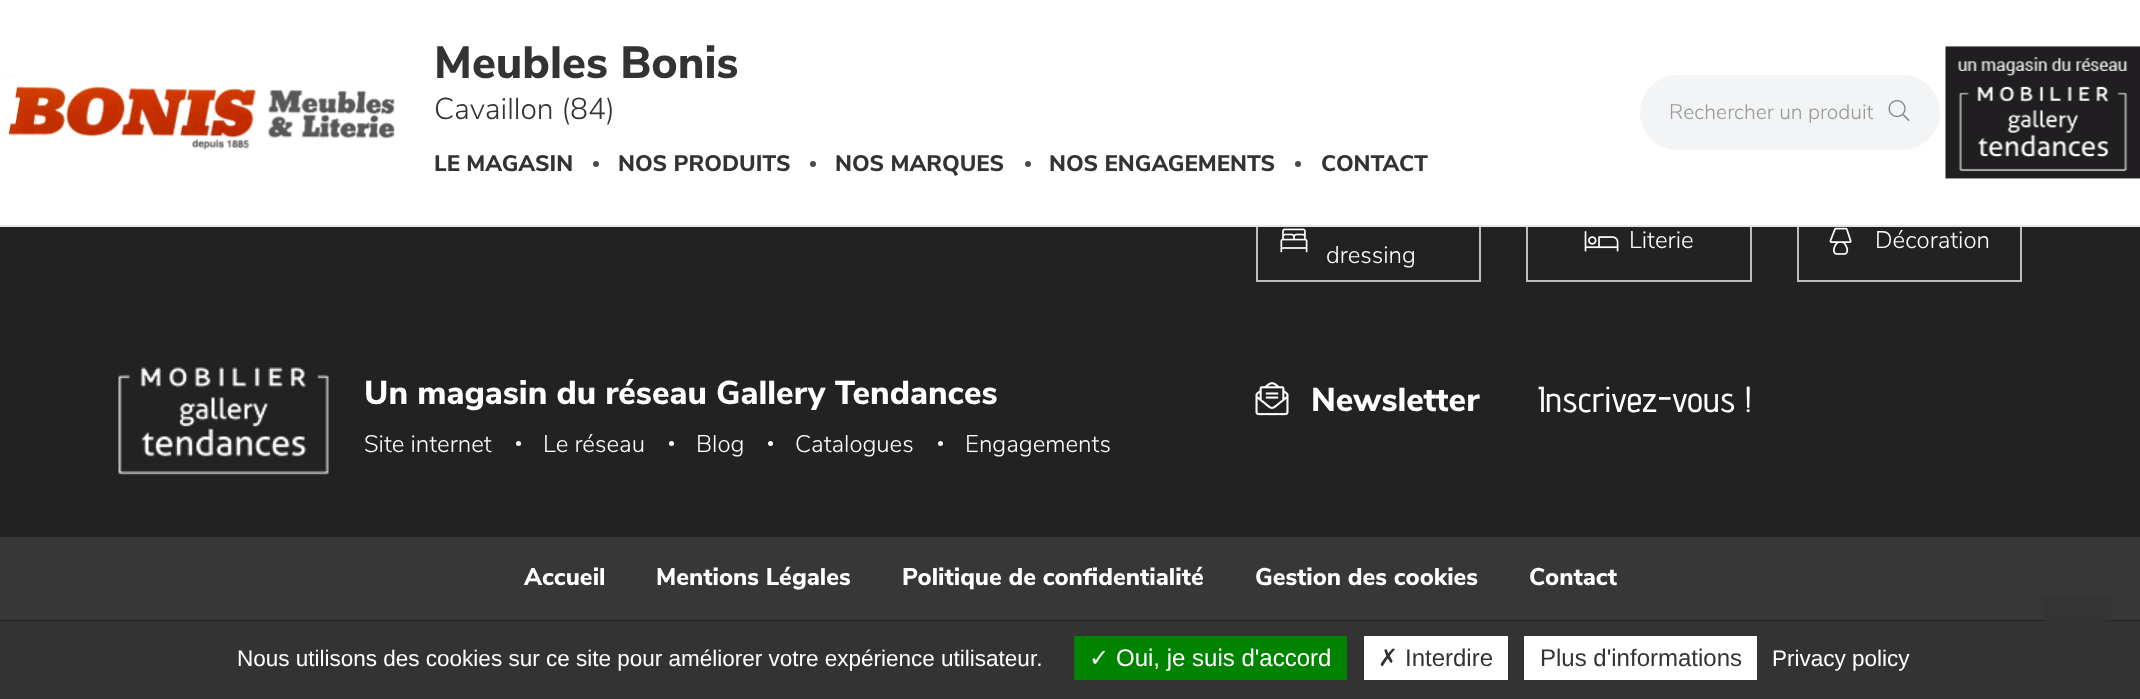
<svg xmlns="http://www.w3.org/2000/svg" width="2140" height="699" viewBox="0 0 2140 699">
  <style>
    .t1 { font: 800 45px Nunito Sans; fill: #333; }
    .t2 { font: 300 30px Nunito Sans; fill: #333; }
    .t3 { font: 800 22.5px Nunito Sans; fill: #333; }
    .t4 { font: 300 21px Nunito Sans; fill: #999; }
    .t5 { font: 300 24px Nunito Sans; fill: #fff; }
    .t6 { font: 800 33px Nunito Sans; fill: #fff; }
    .t7 { font: 500 36px Advent Pro; fill: #fff; }
    .t8 { font: 800 24px Nunito Sans; fill: #fff; }
    .t9 { font: 22.5px Liberation Sans; fill: #fff; }
    .t10 { font: 24px DejaVu Sans; fill: #fff; }
    .t11 { font: 24px Liberation Sans; fill: #fff; }
    .t12 { font: 24px DejaVu Sans; fill: #333; }
    .t13 { font: 24px Liberation Sans; fill: #333; }
  </style>
  <rect width="100%" height="100%" fill="#222"/>
  <rect x="1527" y="204" width="224" height="77" fill="none" stroke="#bdbdbd" stroke-width="2"/>
  <rect x="1798" y="204" width="223" height="77" fill="none" stroke="#bdbdbd" stroke-width="2"/>
  <rect x="1257" y="204" width="223" height="77" fill="none" stroke="#bdbdbd" stroke-width="2"/>
  <rect x="0" y="0" width="2140" height="225" fill="#fff"/>
  <rect x="0" y="225" width="2140" height="2" fill="#e6e6e6"/>
  <image x="5" y="74" width="390" height="76" href="images/1.png"/>
  <text x="434" y="78" class="t1">Meubles Bonis</text>
  <text x="434" y="119" class="t2">Cavaillon (84)</text>
  <text x="434" y="171" class="t3">LE MAGASIN</text>
  <circle cx="596" cy="164" r="3" fill="#4a4a4a"/>
  <text x="618" y="171" class="t3">NOS PRODUITS</text>
  <circle cx="813" cy="164" r="3" fill="#4a4a4a"/>
  <text x="835" y="171" class="t3">NOS MARQUES</text>
  <circle cx="1028" cy="164" r="3" fill="#4a4a4a"/>
  <text x="1049" y="171" class="t3">NOS ENGAGEMENTS</text>
  <circle cx="1298" cy="164" r="3" fill="#4a4a4a"/>
  <text x="1321" y="171" class="t3">CONTACT</text>
  <path d="M1677.5 75H1875V150H1677.5C1657 150 1640 133 1640 112.5C1640 92 1657 75 1677.5 75Z" fill="#f2f4f6"/>
  <text x="1669" y="119" class="t4">Rechercher un produit</text>
  <path d="M1874 75H1902.5C1923 75 1940 92 1940 112.5C1940 133 1923 150 1902.5 150H1874Z" fill="#f2f4f6"/>
  <image x="1888" y="100" width="22" height="21" href="images/2.png"/>
  <image x="1945" y="46" width="195" height="133" href="images/3.png"/>
  <rect x="2043" y="620" width="68" height="1" fill="#2f2f2f"/>
  <image x="1584" y="231" width="35" height="21" href="images/4.png"/>
  <text x="1629" y="248" class="t5">Literie</text>
  <image x="1829" y="227" width="23" height="28" href="images/5.png"/>
  <text x="1875" y="248" class="t5">Décoration</text>
  <image x="1280" y="228" width="28" height="25" href="images/6.png"/>
  <text x="1326" y="263" class="t5">dressing</text>
  <image x="118" y="367" width="211" height="108" href="images/7.png"/>
  <text x="364" y="404" class="t6">Un magasin du réseau Gallery Tendances</text>
  <text x="364" y="452" class="t5">Site internet</text>
  <circle cx="518.5" cy="443.5" r="2.5" fill="#fff"/>
  <text x="543" y="452" class="t5">Le réseau</text>
  <circle cx="671.5" cy="443.5" r="2.5" fill="#fff"/>
  <text x="696" y="452" class="t5">Blog</text>
  <circle cx="770.5" cy="443.5" r="2.5" fill="#fff"/>
  <text x="795" y="452" class="t5">Catalogues</text>
  <circle cx="940.5" cy="443.5" r="2.5" fill="#fff"/>
  <text x="965" y="452" class="t5">Engagements</text>
  <image x="1255" y="382" width="34" height="34" href="images/8.png"/>
  <text x="1311" y="411" class="t6">Newsletter</text>
  <text x="1538" y="412" class="t7">Inscrivez-vous !</text>
  <rect x="0" y="537" width="2140" height="83" fill="#373737"/>
  <rect x="2043" y="597" width="68" height="23" fill="#343434"/>
  <text x="524" y="585" class="t8">Accueil</text>
  <text x="656" y="585" class="t8">Mentions Légales</text>
  <text x="902" y="585" class="t8">Politique de confidentialité</text>
  <text x="1255" y="585" class="t8">Gestion des cookies</text>
  <text x="1529" y="585" class="t8">Contact</text>
  <rect x="0" y="621" width="2140" height="78" fill="#333"/>
  <text x="237" y="666" class="t9">Nous utilisons des cookies sur ce site pour améliorer votre expérience utilisateur.</text>
  <rect x="1074" y="636" width="273" height="44" fill="#008300"/>
  <text x="1089" y="666" class="t10">✓</text>
  <text x="1116" y="666" class="t11">Oui, je suis d'accord</text>
  <rect x="1364" y="636" width="144" height="44" fill="#fff"/>
  <text x="1378" y="666" class="t12">✗</text>
  <text x="1405" y="666" class="t13">Interdire</text>
  <rect x="1524" y="636" width="233" height="44" fill="#fff"/>
  <text x="1540" y="666" class="t13">Plus d'informations</text>
  <text x="1772" y="666" class="t9">Privacy policy</text>
</svg>
